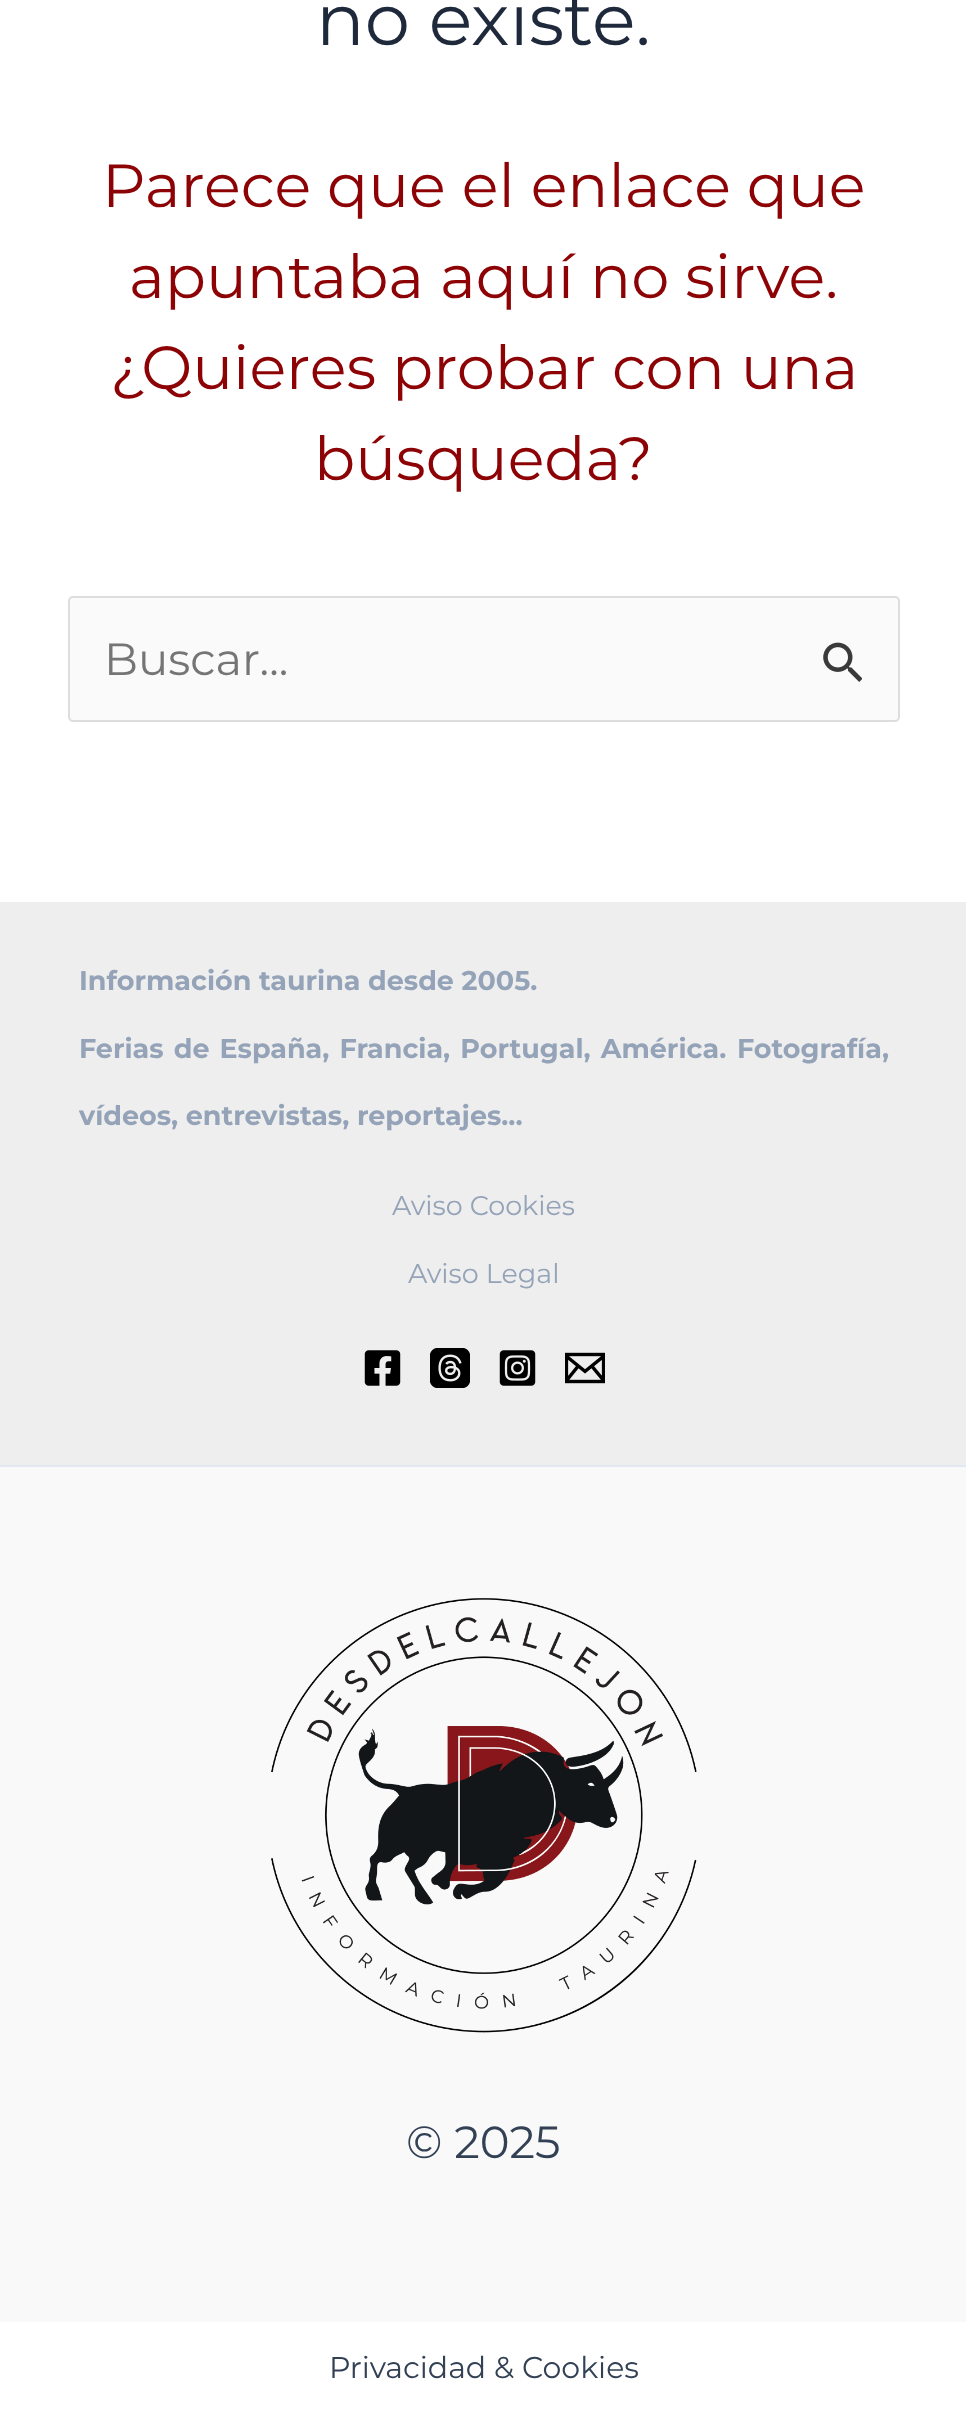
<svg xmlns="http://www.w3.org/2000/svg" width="966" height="2410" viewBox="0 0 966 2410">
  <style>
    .t1 { font: 72px Montserrat; fill: #1e293b; }
    .t2 { font: 60.75px Montserrat; fill: #8d0305; }
    .t3 { font: 45px Montserrat; fill: #757575; }
    .t4 { font: bold 27px Montserrat; fill: #94a3b8; }
    .t5 { font: 27px Montserrat; fill: #94a3b8; }
    .t6 { font: 45px Montserrat; fill: #334155; }
    .t7 { font: 30px Montserrat; fill: #334155; }
  </style>
  <rect width="100%" height="100%" fill="#fff"/>
  <text x="316" y="45" class="t1">no existe.</text>
  <text x="102" y="207" class="t2">Parece que el enlace que</text>
  <text x="129" y="298" class="t2">apuntaba aquí no sirve.</text>
  <text x="110" y="389" class="t2">¿Quieres probar con una</text>
  <text x="314" y="480" class="t2">búsqueda?</text>
  <rect x="69" y="597" width="830" height="124" rx="4" fill="#fafafa" stroke="#ddd" stroke-width="2"/>
  <text x="104" y="675" class="t3">Buscar...</text>
  <image x="823" y="642" width="39" height="40" href="images/1.png"/>
  <rect x="0" y="902" width="966" height="563" fill="#eee"/>
  <text x="79" y="990" class="t4">Información taurina desde 2005.</text>
  <text x="79" y="1058" word-spacing="2.5" class="t4">Ferias de España, Francia, Portugal, América.</text>
  <text x="737" y="1058" class="t4">Fotografía,</text>
  <text x="79" y="1125" class="t4">vídeos, entrevistas, reportajes...</text>
  <text x="392" y="1215" class="t5">Aviso Cookies</text>
  <text x="408" y="1283" class="t5">Aviso Legal</text>
  <image x="364" y="1350" width="37" height="36" href="images/2.png"/>
  <image x="430" y="1348" width="40" height="40" href="images/3.png"/>
  <image x="499" y="1350" width="37" height="36" href="images/4.png"/>
  <image x="565" y="1352" width="40" height="32" href="images/5.png"/>
  <rect x="0" y="1467" width="966" height="855" fill="#f9f9f9"/>
  <rect x="0" y="1465" width="966" height="2" fill="#e2e8f0"/>
  <image x="271" y="1598" width="426" height="435" href="images/6.png"/>
  <text x="406" y="2158" class="t6">© 2025</text>
  <text x="329" y="2378" class="t7">Privacidad &amp; Cookies</text>
</svg>
